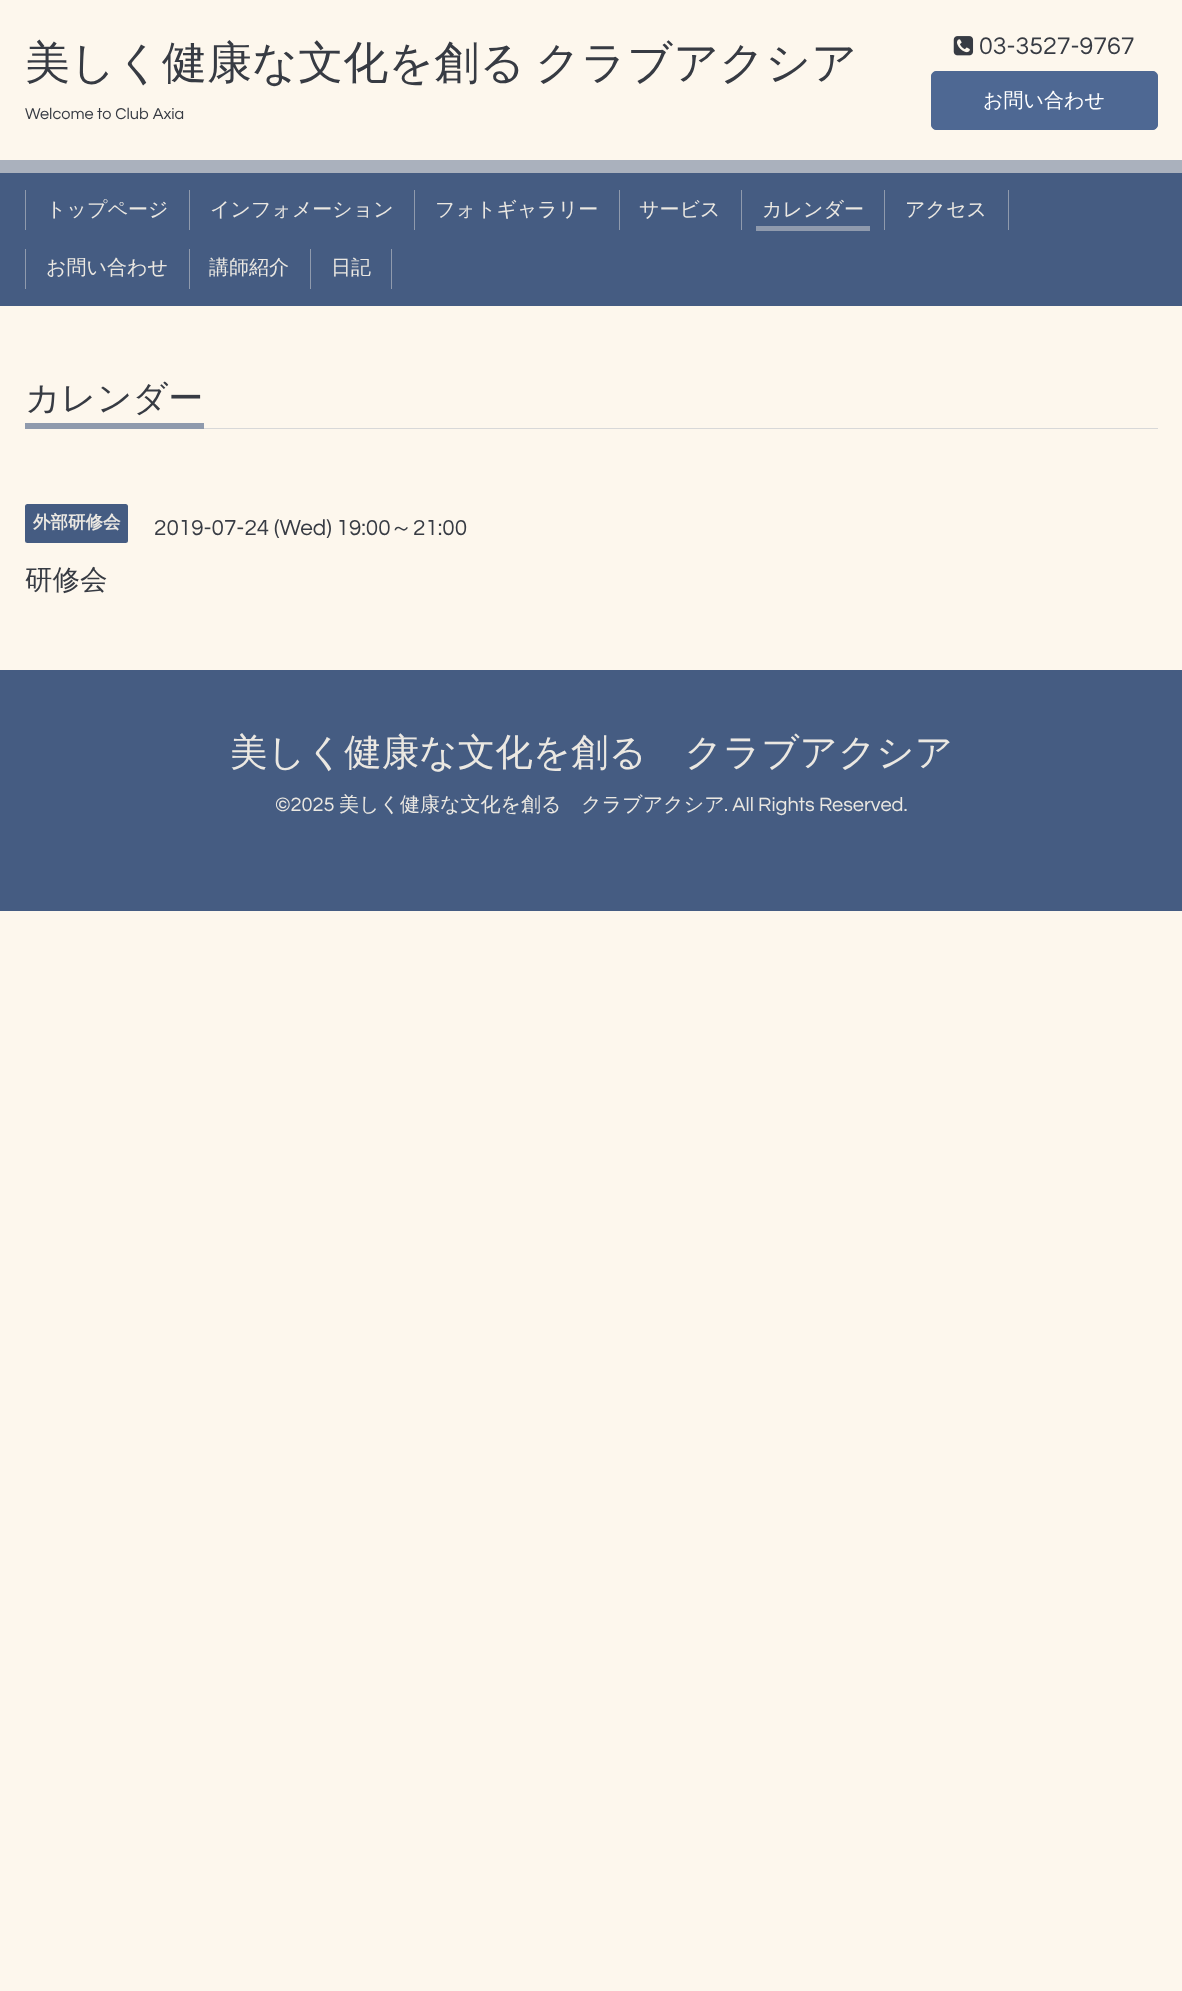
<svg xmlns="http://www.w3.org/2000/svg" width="1182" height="1991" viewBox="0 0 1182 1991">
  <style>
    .t1 { font: 500 45px WenQuanYi Zen Hei; fill: #373b43; }
    .t2 { font: 16.25px Questrial; fill: #373b43; }
    .t3 { font: 25px Questrial; fill: #373b43; }
    .t4 { font: 500 20px WenQuanYi Zen Hei; fill: #fff; }
    .t5 { font: 500 20px WenQuanYi Zen Hei; fill: #ebe8e2; }
    .t6 { font: 500 35px WenQuanYi Zen Hei; fill: #373b43; }
    .t7 { font: bold 17.5px WenQuanYi Zen Hei; fill: #ebe8e2; }
    .t8 { font: 22.5px Questrial; fill: #373b43; }
    .t9 { font: 500 22.5px WenQuanYi Zen Hei; fill: #373b43; }
    .t10 { font: 500 27.5px WenQuanYi Zen Hei; fill: #373b43; }
    .t11 { font: 500 37.5px WenQuanYi Zen Hei; fill: #ebe8e2; }
    .t12 { font: 20px Questrial; fill: #ebe8e2; }
  </style>
  <rect width="100%" height="100%" fill="#fdf7ed"/>
  <text x="25" y="78" class="t1">美しく健康な文化を創る</text>
  <text x="535" y="78" class="t1">クラブアクシア</text>
  <text x="25" y="119" class="t2">Welcome to Club Axia</text>
  <image x="953" y="36" width="21" height="20" href="images/1.png"/>
  <text x="979" y="54" class="t3">03-3527-9767</text>
  <rect x="931.5" y="71.5" width="226" height="58" rx="4.5" fill="#4e6893" stroke="#4e6893"/>
  <text x="983" y="107" class="t4">お問い合わせ</text>
  <rect x="0" y="160" width="1182" height="13" fill="#aab1bd"/>
  <rect x="0" y="173" width="1182" height="133" fill="#455c82"/>
  <rect x="189" y="190" width="1" height="40" fill="#8f9aad"/>
  <rect x="25" y="190" width="1" height="40" fill="#8f9aad"/>
  <text x="46" y="216" class="t5">トップページ</text>
  <rect x="414" y="190" width="1" height="40" fill="#8f9aad"/>
  <text x="210" y="216" class="t5">インフォメーション</text>
  <rect x="619" y="190" width="1" height="40" fill="#8f9aad"/>
  <text x="435" y="216" class="t5">フォトギャラリー</text>
  <rect x="741" y="190" width="1" height="40" fill="#8f9aad"/>
  <text x="639" y="216" class="t5">サービス</text>
  <rect x="884" y="190" width="1" height="40" fill="#8f9aad"/>
  <text x="762" y="216" class="t5">カレンダー</text>
  <rect x="756" y="226" width="114" height="5" fill="#8f9aad"/>
  <rect x="1008" y="190" width="1" height="40" fill="#8f9aad"/>
  <text x="905" y="216" class="t5">アクセス</text>
  <rect x="189" y="249" width="1" height="40" fill="#8f9aad"/>
  <rect x="25" y="249" width="1" height="40" fill="#8f9aad"/>
  <text x="46" y="274" class="t5">お問い合わせ</text>
  <rect x="310" y="249" width="1" height="40" fill="#8f9aad"/>
  <text x="209" y="274" class="t5">講師紹介</text>
  <rect x="391" y="249" width="1" height="40" fill="#8f9aad"/>
  <text x="331" y="274" class="t5">日記</text>
  <rect x="204" y="428" width="954" height="1" fill="#d8d8d8"/>
  <rect x="25" y="423" width="179" height="6" fill="#8f9aad"/>
  <text x="25" y="410" class="t6">カレンダー</text>
  <rect x="25" y="504" width="103" height="39" rx="2.5" fill="#455c82"/>
  <text x="33" y="528" class="t7">外部研修会</text>
  <text x="154" y="535" class="t8">2019-07-24 (Wed) 19:00</text>
  <text x="390" y="535" class="t9">～</text>
  <text x="413" y="535" class="t8">21:00</text>
  <text x="25" y="589" class="t10">研修会</text>
  <rect x="0" y="670" width="1182" height="241" fill="#455c82"/>
  <text x="230" y="765" class="t11">美しく健康な文化を創る　クラブアクシア</text>
  <text x="275" y="811" class="t12">©2025</text>
  <text x="339" y="811" class="t5">美しく健康な文化を創る　クラブアクシア</text>
  <text x="724" y="811" class="t12">. All Rights Reserved.</text>
</svg>
